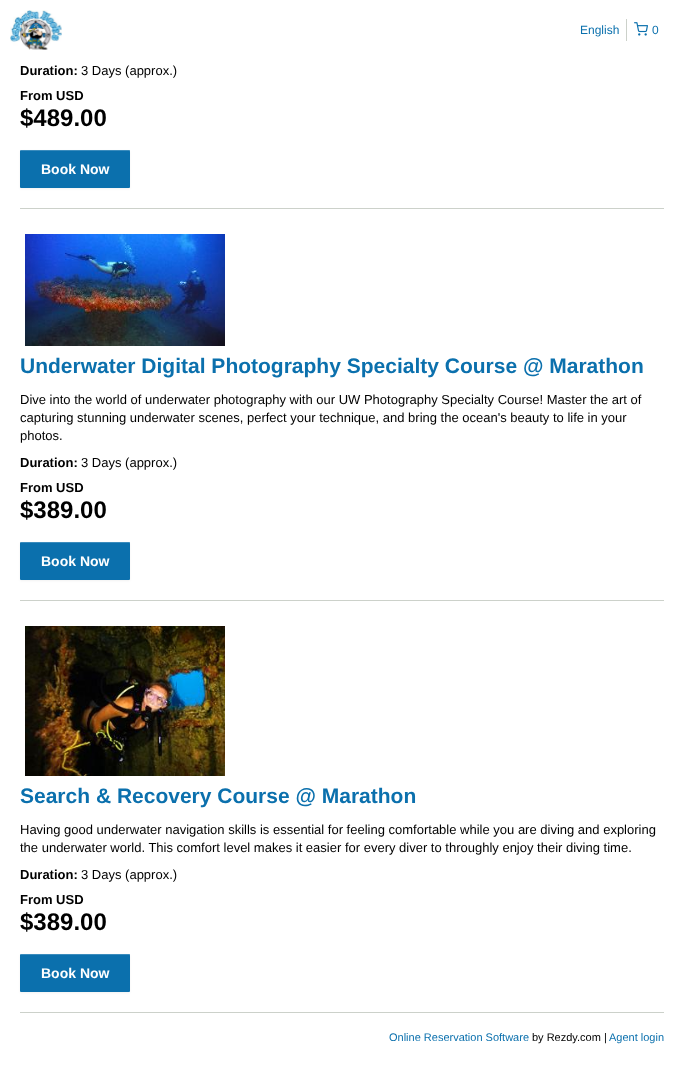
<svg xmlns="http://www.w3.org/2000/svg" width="684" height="1080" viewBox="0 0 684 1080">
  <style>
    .t1 { font: 12px Liberation Sans; fill: #0b70ad; }
    .t2 { font: bold 13px Liberation Sans; fill: #000; }
    .t3 { font: 13px Liberation Sans; fill: #000; }
    .t4 { font: bold 24px Liberation Sans; fill: #000; }
    .t5 { font: bold 14px Liberation Sans; fill: #fff; }
    .t6 { font: bold 21px Liberation Sans; fill: #0b70ad; }
    .t7 { font: 11px Liberation Sans; fill: #0b70ad; }
    .t8 { font: 11px Liberation Sans; fill: #000; }
  </style>
  <rect width="100%" height="100%" fill="#fff"/>
  <image x="10" y="10" width="52" height="40" href="images/1.png"/>
  <rect x="626" y="19" width="1" height="22" fill="#ccd1ca"/>
  <text x="580" y="34" class="t1">English</text>
  <image x="634" y="22" width="14" height="14" href="images/2.png"/>
  <text x="652" y="34" class="t1">0</text>
  <rect x="20" y="208" width="644" height="1" fill="#ccd1ca"/>
  <text x="20" y="75" class="t2">Duration:</text>
  <text x="81" y="75" class="t3">3 Days (approx.)</text>
  <text x="20" y="100" class="t2">From USD</text>
  <text x="20" y="126" class="t4">$489.00</text>
  <rect x="20" y="151" width="110" height="38" rx="1" fill="#0000000d" filter="blur(1px)"/>
  <rect x="20" y="150" width="110" height="38" rx="1" fill="#0b70ad"/>
  <path d="M21 151H130V152L129 150H39C35 150 20 145 20 152C20 151 20 151 21 151Z" fill="#ffffff33"/>
  <text x="41" y="174" class="t5">Book Now</text>
  <rect x="20" y="600" width="644" height="1" fill="#ccd1ca"/>
  <image x="25" y="234" width="200" height="112" href="images/3.png"/>
  <text x="20" y="373" class="t6">Underwater Digital Photography Specialty Course @ Marathon</text>
  <text x="20" y="404" class="t3">Dive into the world of underwater photography with our UW Photography Specialty Course! Master the art of</text>
  <text x="20" y="422" class="t3">capturing stunning underwater scenes, perfect your technique, and bring the ocean's beauty to life in your</text>
  <text x="20" y="440" class="t3">photos.</text>
  <text x="20" y="467" class="t2">Duration:</text>
  <text x="81" y="467" class="t3">3 Days (approx.)</text>
  <text x="20" y="492" class="t2">From USD</text>
  <text x="20" y="518" class="t4">$389.00</text>
  <rect x="20" y="543" width="110" height="38" rx="1" fill="#0000000d" filter="blur(1px)"/>
  <rect x="20" y="542" width="110" height="38" rx="1" fill="#0b70ad"/>
  <path d="M21 543H130V544L129 542H39C35 542 20 537 20 544C20 543 20 543 21 543Z" fill="#ffffff33"/>
  <text x="41" y="566" class="t5">Book Now</text>
  <rect x="20" y="1012" width="644" height="1" fill="#ccd1ca"/>
  <image x="25" y="626" width="200" height="150" href="images/4.png"/>
  <text x="20" y="803" class="t6">Search &amp; Recovery Course @ Marathon</text>
  <text x="20" y="834" class="t3">Having good underwater navigation skills is essential for feeling comfortable while you are diving and exploring</text>
  <text x="20" y="852" class="t3">the underwater world. This comfort level makes it easier for every diver to throughly enjoy their diving time.</text>
  <text x="20" y="879" class="t2">Duration:</text>
  <text x="81" y="879" class="t3">3 Days (approx.)</text>
  <text x="20" y="904" class="t2">From USD</text>
  <text x="20" y="930" class="t4">$389.00</text>
  <rect x="20" y="955" width="110" height="38" rx="1" fill="#0000000d" filter="blur(1px)"/>
  <rect x="20" y="954" width="110" height="38" rx="1" fill="#0b70ad"/>
  <path d="M21 955H130V956L129 954H39C35 954 20 949 20 956C20 955 20 955 21 955Z" fill="#ffffff33"/>
  <text x="41" y="978" class="t5">Book Now</text>
  <text x="389" y="1041" class="t7">Online Reservation Software</text>
  <text x="532" y="1041" class="t8">by Rezdy.com |</text>
  <text x="609" y="1041" class="t7">Agent login</text>
</svg>
